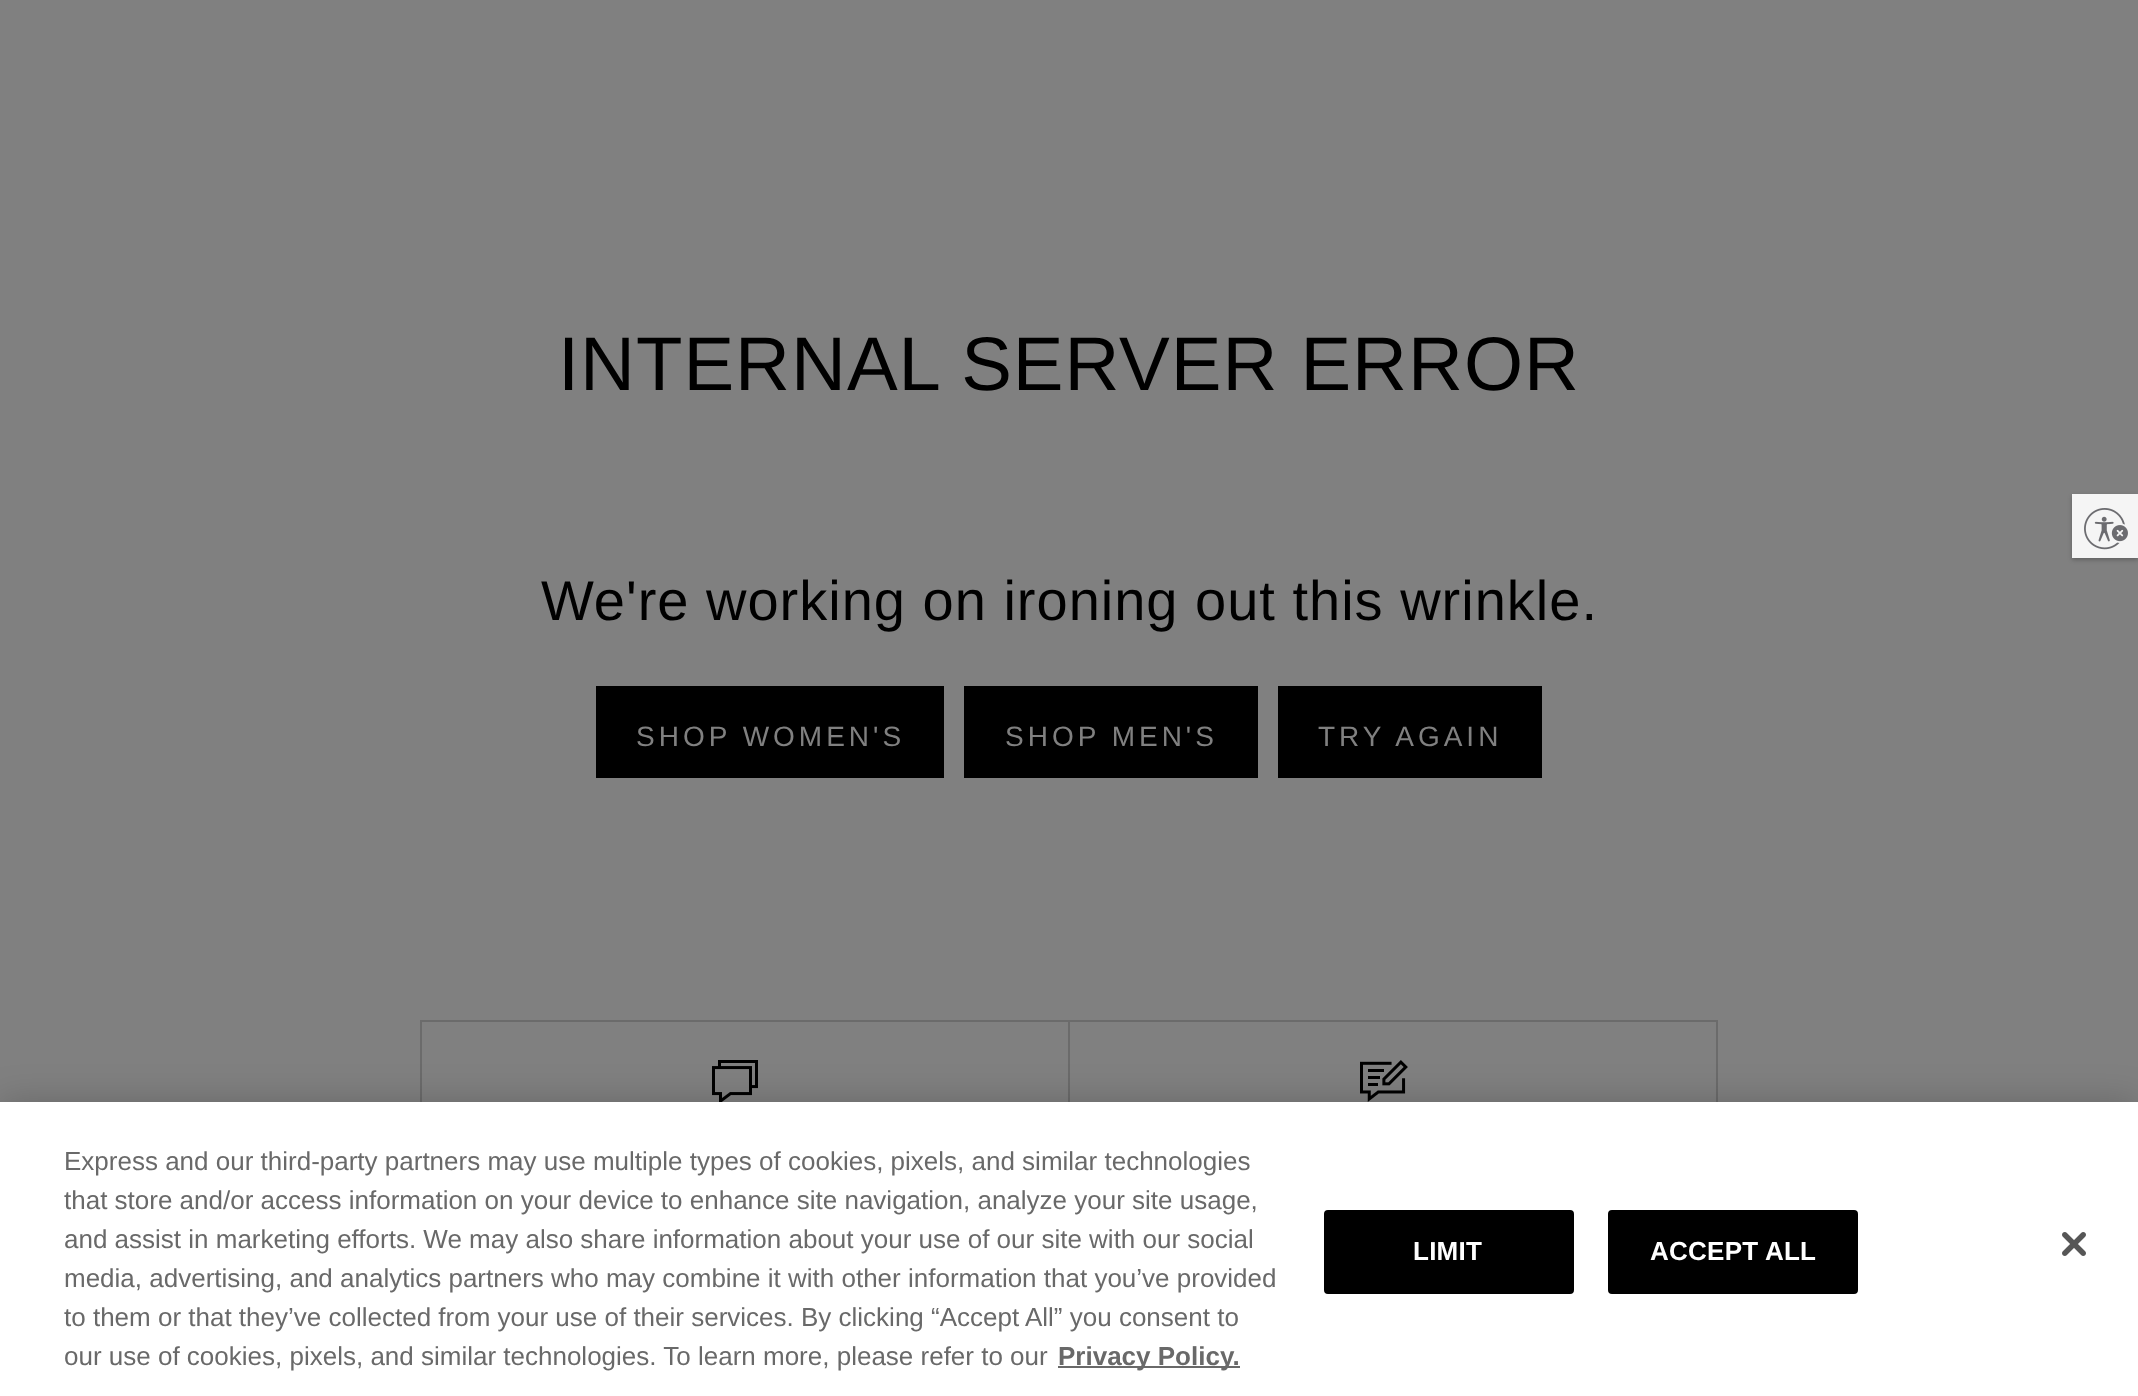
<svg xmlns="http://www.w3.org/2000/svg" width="2138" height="1396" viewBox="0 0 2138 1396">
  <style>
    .t1 { font: 76px Liberation Sans; letter-spacing: 1px; fill: #000; }
    .t2 { font: 56px Liberation Sans; letter-spacing: 1px; fill: #000; }
    .t3 { font: 28px Liberation Sans; letter-spacing: 4px; fill: #808080; }
    .t4 { font: 26px Liberation Sans; fill: #696969; }
    .t5 { font: bold 26px Liberation Sans; fill: #696969; }
    .t6 { font: bold 26px Liberation Sans; letter-spacing: 0.25px; fill: #fff; }
  </style>
  <rect width="100%" height="100%" fill="#808080"/>
  <text x="558" y="390" class="t1">INTERNAL SERVER ERROR</text>
  <text x="541" y="620" class="t2">We're working on ironing out this wrinkle.</text>
  <rect x="596" y="686" width="348" height="92" fill="#000"/>
  <text x="636" y="746" class="t3">SHOP WOMEN'S</text>
  <rect x="964" y="686" width="294" height="92" fill="#000"/>
  <text x="1005" y="746" class="t3">SHOP MEN'S</text>
  <rect x="1278" y="686" width="264" height="92" fill="#000"/>
  <text x="1318" y="746" class="t3">TRY AGAIN</text>
  <rect x="421" y="1021" width="648" height="128" fill="none" stroke="#6b6b6b" stroke-width="2"/>
  <image x="712" y="1060" width="46" height="42" href="images/1.png"/>
  <rect x="1069" y="1021" width="648" height="128" fill="none" stroke="#6b6b6b" stroke-width="2"/>
  <image x="1360" y="1060" width="48" height="42" href="images/2.png"/>
  <rect x="2072" y="496" width="66" height="64" fill="#0000003d" filter="blur(2px)"/>
  <rect x="2072" y="494" width="66" height="64" fill="#f5f5f5"/>
  <image x="2084" y="508" width="44" height="42" href="images/3.png"/>
  <rect x="0" y="1102" width="2138" height="294" fill="#00000033" filter="blur(18px)"/>
  <rect x="0" y="1102" width="2138" height="294" fill="#fff"/>
  <text x="64" y="1170" class="t4">Express and our third-party partners may use multiple types of cookies, pixels, and similar technologies</text>
  <text x="64" y="1209" class="t4">that store and/or access information on your device to enhance site navigation, analyze your site usage,</text>
  <text x="64" y="1248" class="t4">and assist in marketing efforts. We may also share information about your use of our site with our social</text>
  <text x="64" y="1287" class="t4">media, advertising, and analytics partners who may combine it with other information that you’ve provided</text>
  <text x="64" y="1326" class="t4">to them or that they’ve collected from your use of their services. By clicking “Accept All” you consent to</text>
  <text x="64" y="1365" class="t4">our use of cookies, pixels, and similar technologies. To learn more, please refer to our</text>
  <rect x="1058" y="1366" width="182" height="2" fill="#696969"/>
  <text x="1058" y="1365" class="t5">Privacy Policy.</text>
  <rect x="1325" y="1211" width="248" height="82" rx="3" fill="#000" stroke="#000" stroke-width="2"/>
  <text x="1413" y="1260" class="t6">LIMIT</text>
  <rect x="1609" y="1211" width="248" height="82" rx="3" fill="#000" stroke="#000" stroke-width="2"/>
  <text x="1650" y="1260" class="t6">ACCEPT ALL</text>
  <image x="2062" y="1232" width="24" height="24" href="images/4.png"/>
</svg>
